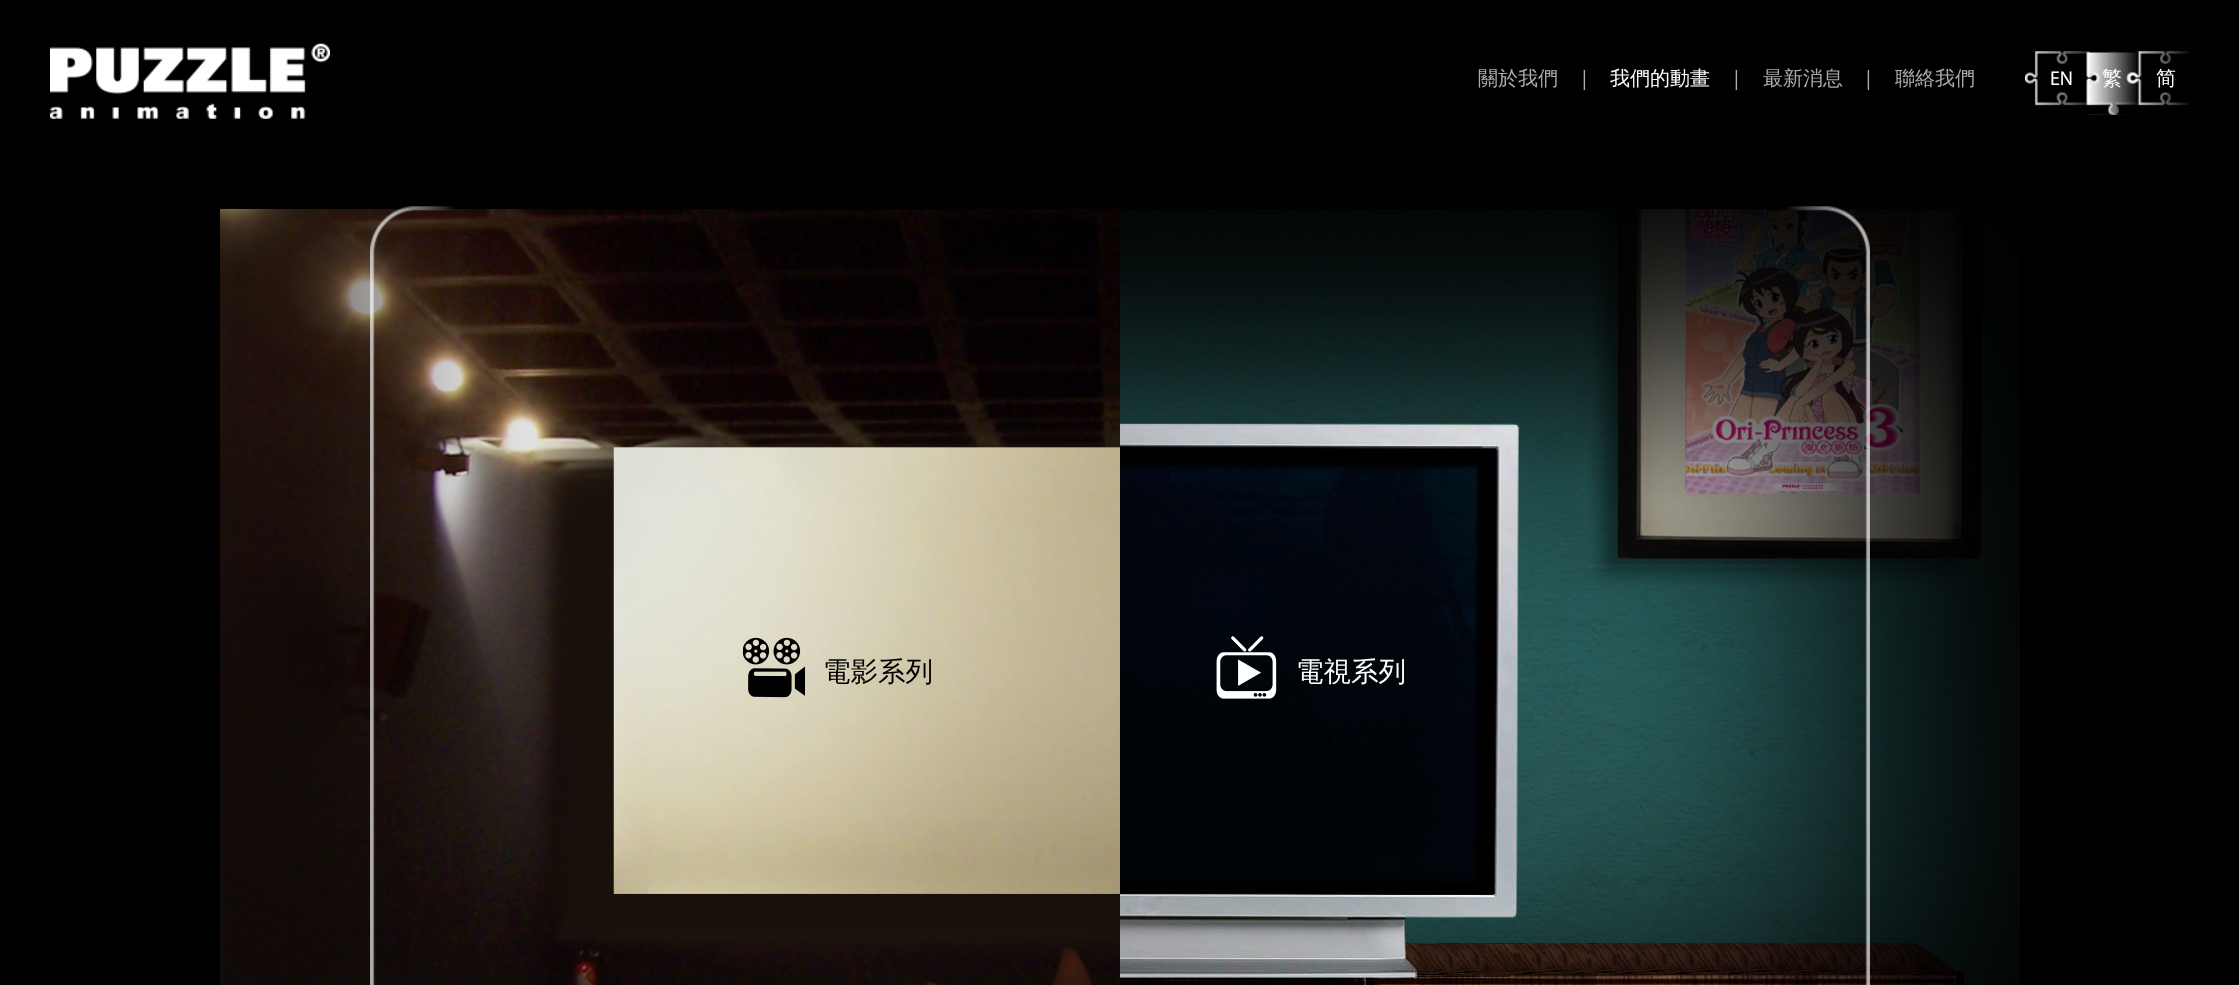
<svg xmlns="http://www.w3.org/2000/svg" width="2239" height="985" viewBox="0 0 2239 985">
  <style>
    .t1 { font: 500 20px WenQuanYi Zen Hei; fill: #aaacad; }
    .t2 { font: 20px Myriad; fill: #aaacad; }
    .t3 { font: 500 20px WenQuanYi Zen Hei; fill: #fff; }
    .t4 { font: 20px Myriad; fill: #fff; }
    .t5 { font: 500 27.5px WenQuanYi Zen Hei; fill: #000; }
    .t6 { font: 500 27.5px WenQuanYi Zen Hei; fill: #fff; }
  </style>
  <rect width="100%" height="100%" fill="#000"/>
  <image x="50" y="43" width="280" height="76" href="images/1.png"/>
  <text x="1478" y="85" class="t1">關於我們</text>
  <text x="1582" y="85" class="t2">|</text>
  <text x="1610" y="85" class="t3">我們的動畫</text>
  <text x="1734" y="85" class="t2">|</text>
  <text x="1763" y="85" class="t1">最新消息</text>
  <text x="1866" y="85" class="t2">|</text>
  <text x="1895" y="85" class="t1">聯絡我們</text>
  <image x="2025" y="51" width="165" height="64" href="images/2.png"/>
  <text x="2050" y="85" class="t4">EN</text>
  <text x="2102" y="85" class="t3">繁</text>
  <image x="2087" y="51" width="51" height="64" href="images/3.png"/>
  <text x="2156" y="85" class="t3">简</text>
  <image x="220" y="208" width="900" height="777" href="images/6.png"/>
  <image x="370" y="206" width="84" height="779" href="images/4.png"/>
  <image x="1120" y="209" width="900" height="776" href="images/9.png"/>
  <image x="1787" y="206" width="83" height="779" href="images/5.png"/>
  <image x="613" y="447" width="507" height="447" href="images/7.png"/>
  <image x="743" y="637" width="62" height="61" href="images/8.png"/>
  <text x="823" y="681" class="t5">電影系列</text>
  <image x="1120" y="423" width="400" height="556" href="images/10.png"/>
  <image x="1216" y="636" width="61" height="63" href="images/11.png"/>
  <text x="1296" y="681" class="t6">電視系列</text>
</svg>
